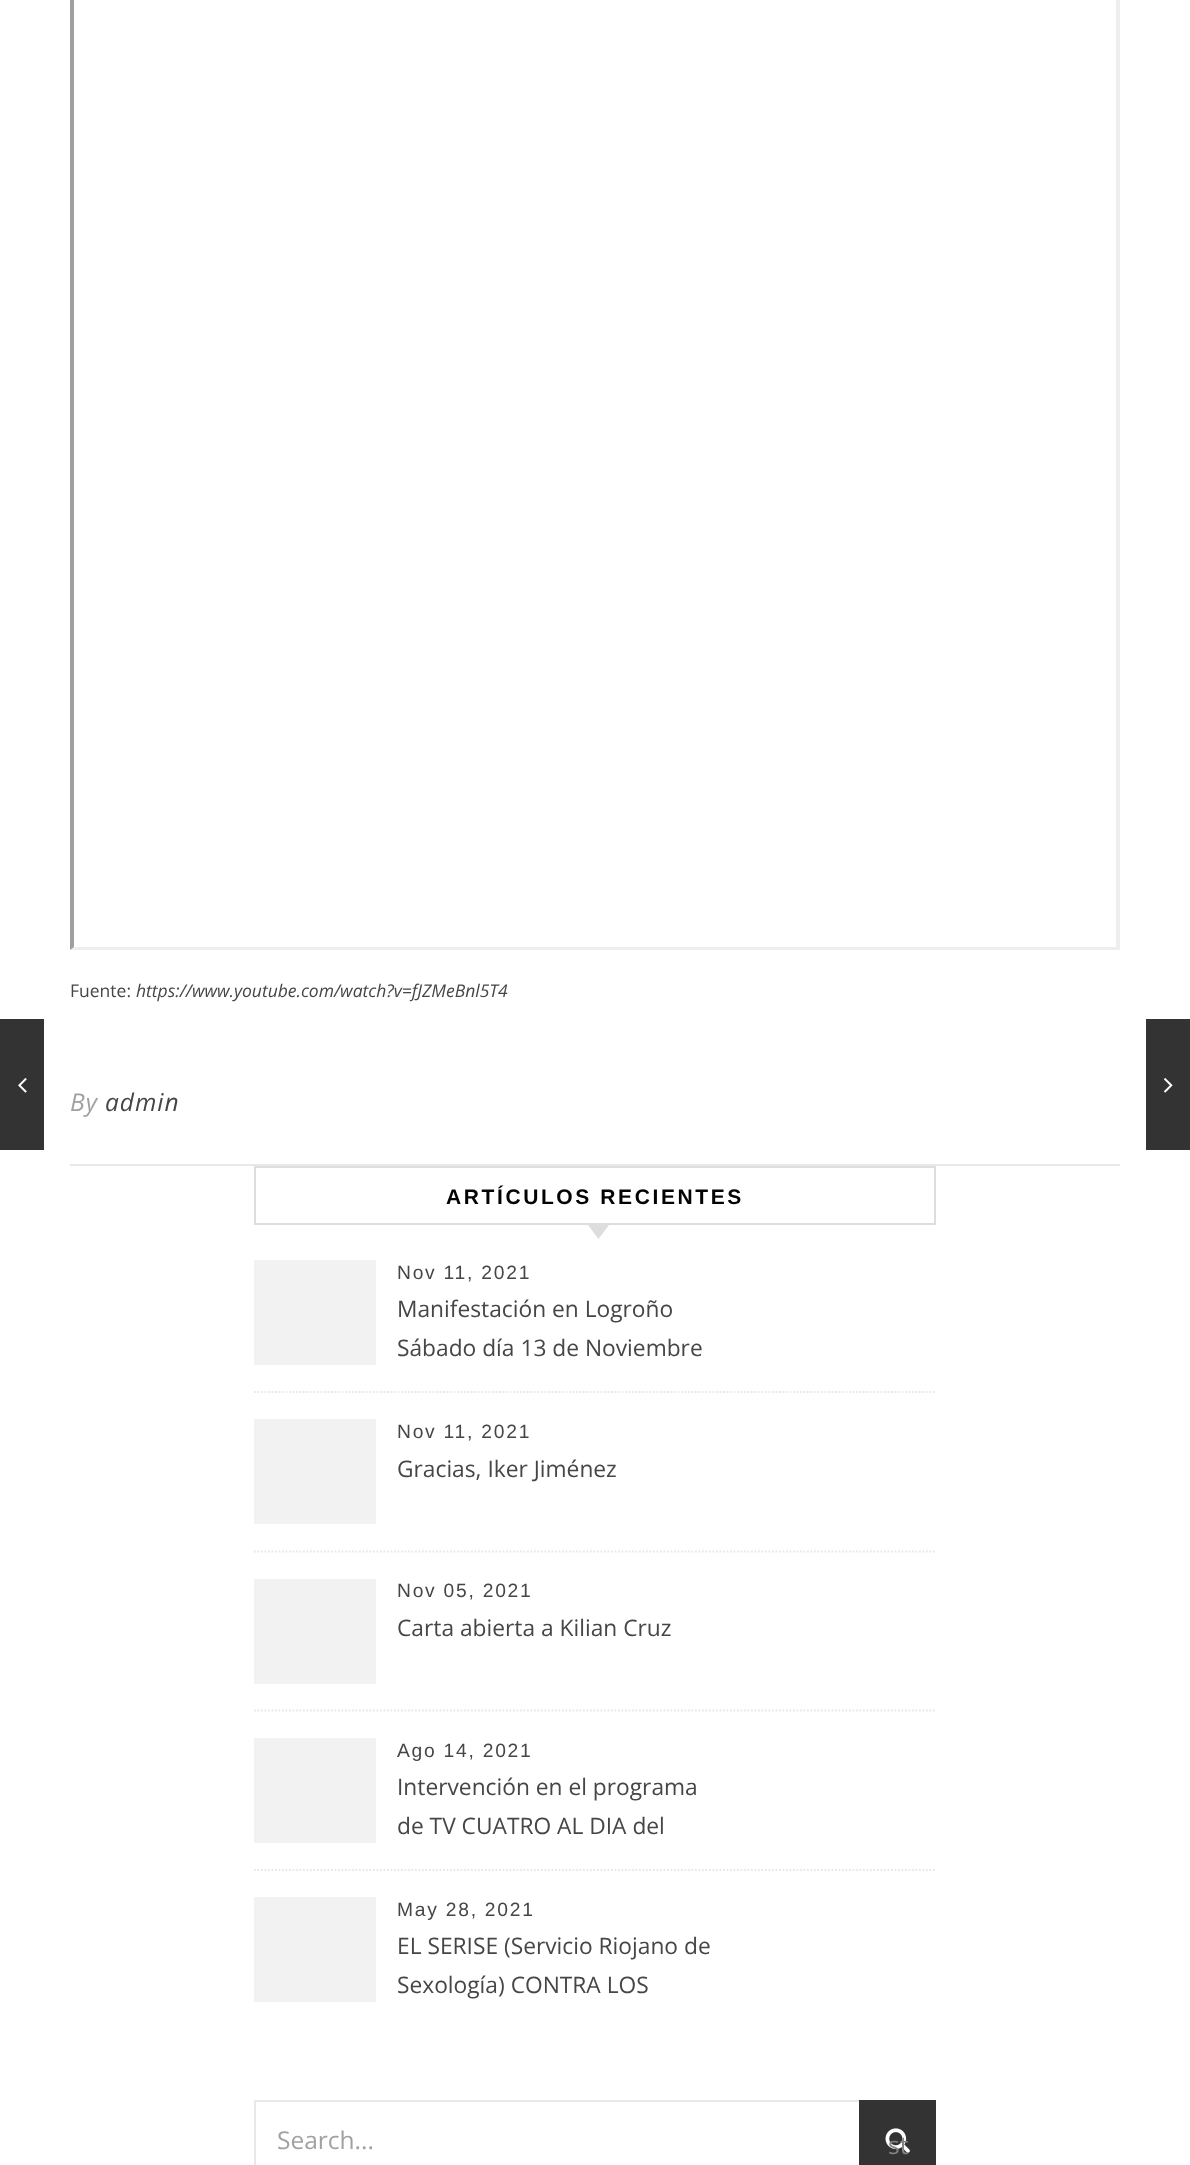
<svg xmlns="http://www.w3.org/2000/svg" width="1190" height="2165" viewBox="0 0 1190 2165">
  <style>
    .t1 { font: 17.5px Open Sans; fill: #464646; }
    .t2 { font: italic 17.5px Open Sans; fill: #464646; }
    .t3 { font: italic 24.5px Open Sans; letter-spacing: 1px; fill: #a1a1a1; }
    .t4 { font: italic 24.5px Open Sans; letter-spacing: 1px; fill: #464646; }
    .t5 { font: bold 21px Liberation Sans; letter-spacing: 2.6px; fill: #030303; }
    .t6 { font: 19.25px Liberation Sans; letter-spacing: 1.75px; fill: #464646; }
    .t7 { font: 22.75px Open Sans; fill: #464646; }
    .t8 { font: 24.5px Open Sans; fill: #a1a1a1; }
    .t9 { font: 24.5px Open Sans; fill: #838383; }
  </style>
  <rect width="100%" height="100%" fill="#fff"/>
  <rect x="0" y="1019" width="44" height="131" fill="#333"/>
  <image x="18" y="1078" width="9" height="15" href="images/1.png"/>
  <path d="M1120-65V950L1116 947V-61Z" fill="#eee"/>
  <path d="M1120 950H70L74 947H1116Z" fill="#eee"/>
  <path d="M70 950V-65L74-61V947Z" fill="#9f9f9f"/>
  <text x="70" y="997" class="t1">Fuente:</text>
  <text x="136" y="997" class="t2">https://www.youtube.com/watch?v=fJZMeBnl5T4</text>
  <rect x="70" y="1164" width="1050" height="2" fill="#e8e8e8"/>
  <text x="70" y="1111" class="t3">By</text>
  <text x="105" y="1111" class="t4">admin</text>
  <rect x="1146" y="1019" width="44" height="131" fill="#333"/>
  <image x="1164" y="1078" width="9" height="15" href="images/2.png"/>
  <rect x="255" y="1167" width="680" height="57" fill="none" stroke="#ddd" stroke-width="2"/>
  <text x="446" y="1204" class="t5">ARTÍCULOS RECIENTES</text>
  <path d="M588 1225H609L598.5 1239Z" fill="#ddd"/>
  <path d="M254 1392H936" fill="none" stroke="#e8e8e8" stroke-width="1.8" stroke-dasharray="1.75 1.75"/>
  <rect x="254" y="1260" width="122" height="105" fill="#f2f2f2"/>
  <text x="397" y="1279" class="t6">Nov 11, 2021</text>
  <text x="397" y="1317" class="t7">Manifestación en Logroño</text>
  <text x="397" y="1356" class="t7">Sábado día 13 de Noviembre</text>
  <path d="M254 1551.5H936" fill="none" stroke="#e8e8e8" stroke-width="1.8" stroke-dasharray="1.75 1.75"/>
  <rect x="254" y="1419" width="122" height="105" fill="#f2f2f2"/>
  <text x="397" y="1438" class="t6">Nov 11, 2021</text>
  <text x="397" y="1477" class="t7">Gracias, Iker Jiménez</text>
  <path d="M254 1710.5H936" fill="none" stroke="#e8e8e8" stroke-width="1.8" stroke-dasharray="1.75 1.75"/>
  <rect x="254" y="1579" width="122" height="105" fill="#f2f2f2"/>
  <text x="397" y="1597" class="t6">Nov 05, 2021</text>
  <text x="397" y="1636" class="t7">Carta abierta a Kilian Cruz</text>
  <path d="M254 1870H936" fill="none" stroke="#e8e8e8" stroke-width="1.8" stroke-dasharray="1.75 1.75"/>
  <rect x="254" y="1738" width="122" height="105" fill="#f2f2f2"/>
  <text x="397" y="1757" class="t6">Ago 14, 2021</text>
  <text x="397" y="1795" class="t7">Intervención en el programa</text>
  <text x="397" y="1834" class="t7">de TV CUATRO AL DIA del</text>
  <rect x="254" y="1897" width="122" height="105" fill="#f2f2f2"/>
  <text x="397" y="1916" class="t6">May 28, 2021</text>
  <text x="397" y="1954" class="t7">EL SERISE (Servicio Riojano de</text>
  <text x="397" y="1993" class="t7">Sexología) CONTRA LOS</text>
  <rect x="255" y="2101" width="680" height="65" fill="none" stroke="#e8e8e8" stroke-width="2"/>
  <text x="277" y="2149" class="t8">Search...</text>
  <rect x="859" y="2100" width="77" height="65" fill="#333"/>
  <image x="885" y="2128" width="25" height="25" href="images/3.png"/>
  <text x="888" y="2154" class="t9">st</text>
</svg>
